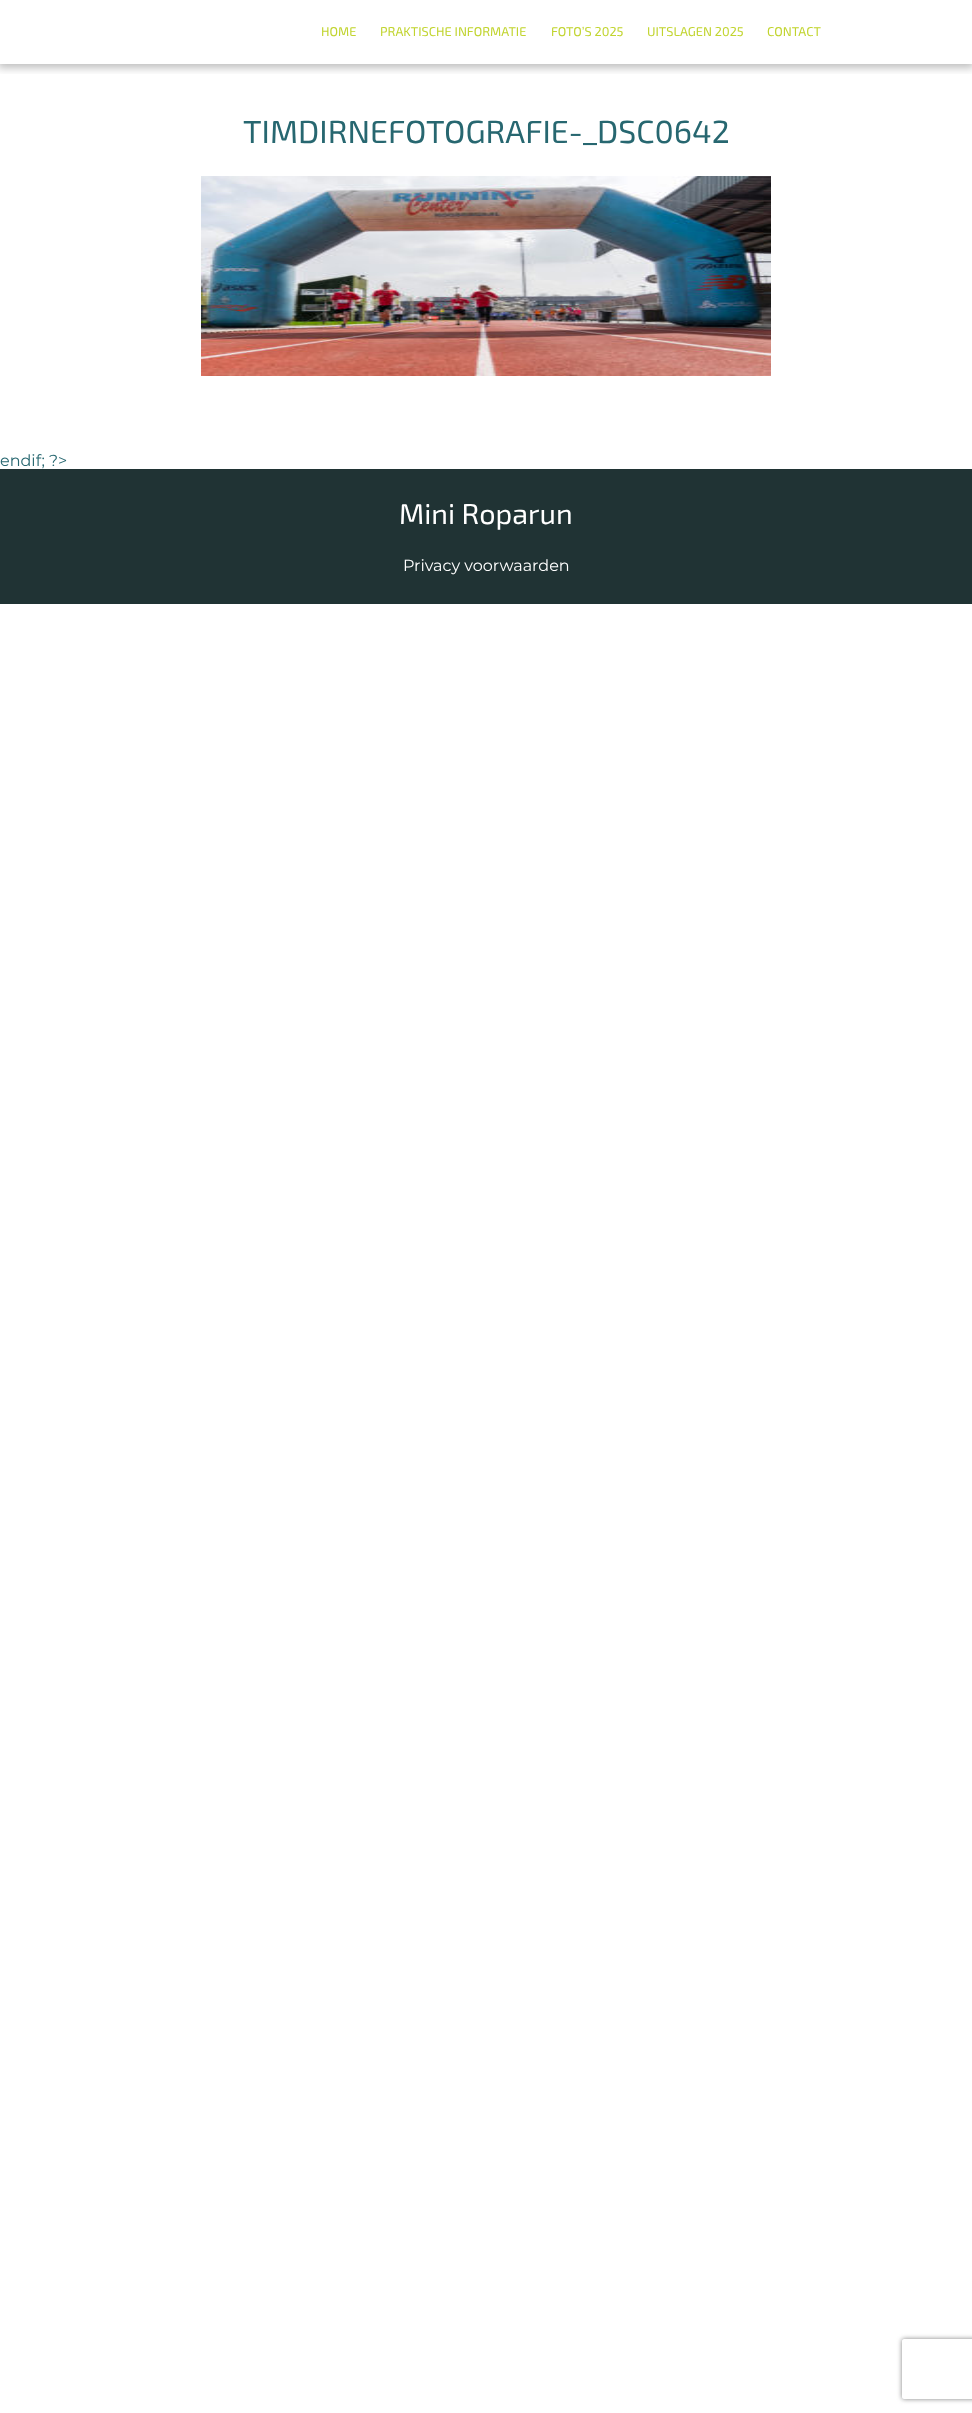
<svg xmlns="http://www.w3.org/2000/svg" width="972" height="2413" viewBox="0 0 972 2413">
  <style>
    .t1 { font: 12.75px 'Exo 2'; fill: #c1d42e; }
    .t2 { font: 32px 'Exo 2'; fill: #276770; }
    .t3 { font: 16px Montserrat; fill: #276770; }
    .t4 { font: 28.75px 'Exo 2'; fill: #fff; }
    .t5 { font: 16px Montserrat; fill: #fff; }
  </style>
  <defs>
    <clipPath id="clip1"><rect x="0" y="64" width="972" height="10"/></clipPath>
    <clipPath id="clip2"><path d="M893 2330H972V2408H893ZM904 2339H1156C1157 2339 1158 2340 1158 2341V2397C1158 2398 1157 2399 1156 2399H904C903 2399 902 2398 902 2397V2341C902 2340 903 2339 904 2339Z" clip-rule="evenodd"/></clipPath>
  </defs>
  <rect width="100%" height="100%" fill="#fff"/>
  <g clip-path="url(#clip1)">
    <rect x="-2" y="0" width="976" height="68" fill="#00000040" filter="blur(4px)"/>
  </g>
  <text x="321" y="36" class="t1">HOME</text>
  <text x="380" y="36" class="t1">PRAKTISCHE INFORMATIE</text>
  <text x="551" y="36" class="t1">FOTO’S 2025</text>
  <text x="647" y="36" class="t1">UITSLAGEN 2025</text>
  <text x="767" y="36" class="t1">CONTACT</text>
  <text x="243" y="143" class="t2">TIMDIRNEFOTOGRAFIE-_DSC0642</text>
  <image x="201" y="176" width="570" height="200" href="images/1.png"/>
  <text x="0" y="466" class="t3">endif; ?&gt;</text>
  <rect x="0" y="469" width="972" height="135" fill="#203334"/>
  <text x="399" y="524" class="t4">Mini Roparun</text>
  <text x="403" y="571" class="t5">Privacy voorwaarden</text>
  <g clip-path="url(#clip2)">
    <rect x="902" y="2339" width="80" height="60" rx="2" fill="#808080" filter="blur(2.5px)"/>
  </g>
</svg>
